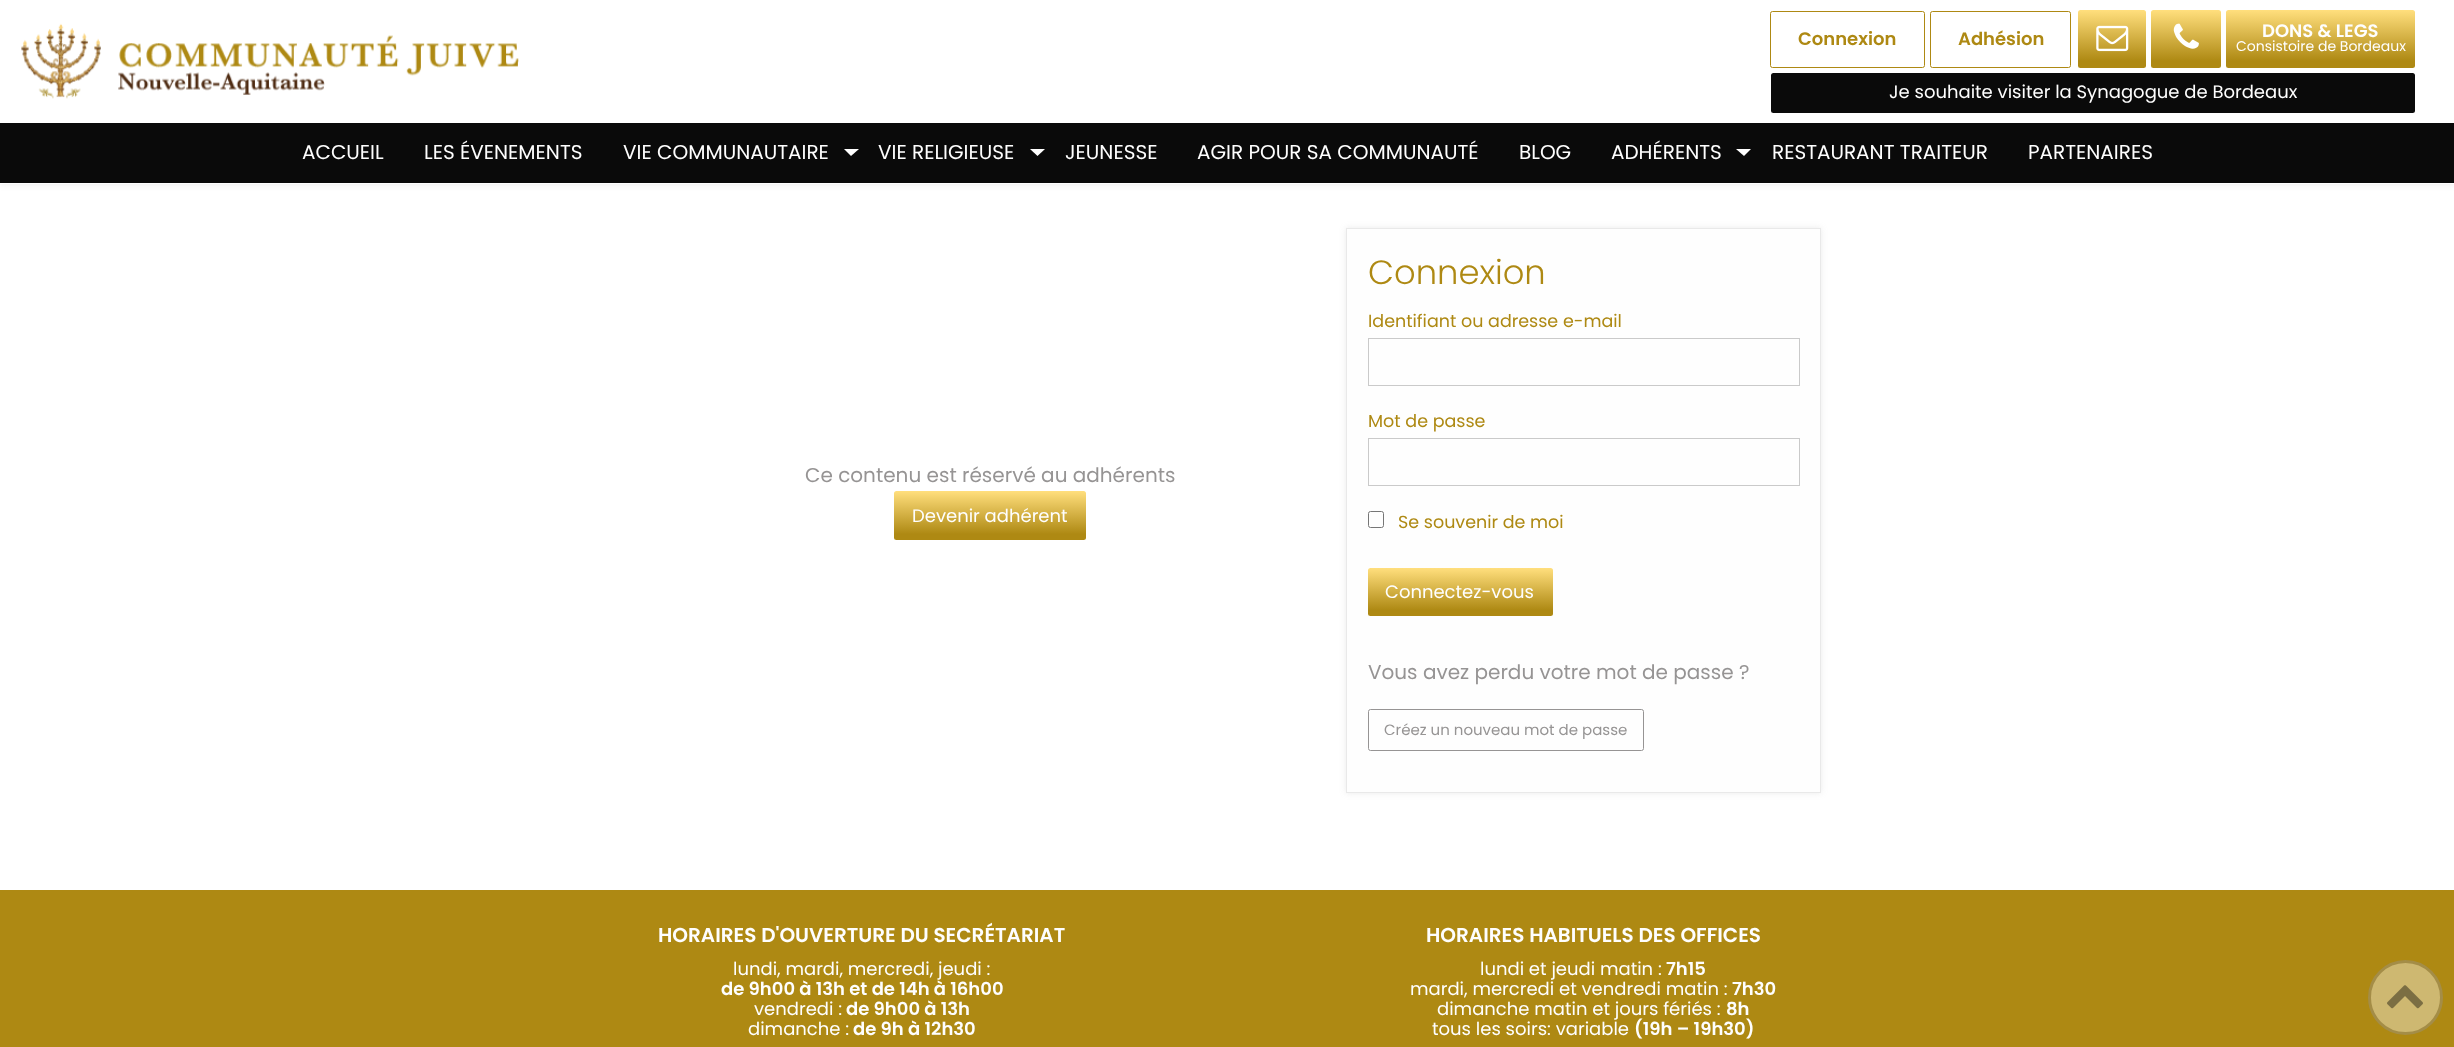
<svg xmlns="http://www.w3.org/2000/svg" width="2454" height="1047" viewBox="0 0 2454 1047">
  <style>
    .t1 { font: 600 18px Poppins; fill: #ae8913; }
    .t2 { font: 600 18px Poppins; fill: #fefefe; }
    .t3 { font: 14px Poppins; fill: #fefefe; }
    .t4 { font: 18px Poppins; fill: #fefefe; }
    .t5 { font: 20px Poppins; fill: #fefefe; }
    .t6 { font: 20px Poppins; fill: #969494; }
    .t7 { font: 300 33.75px Poppins; fill: #ae8913; }
    .t8 { font: 17.5px Poppins; fill: #ae8913; }
    .t9 { font: 15px Poppins; fill: #969494; }
    .t10 { font: 600 20px Poppins; fill: #fefefe; }
  </style>
  <defs>
    <linearGradient id="g1" gradientUnits="userSpaceOnUse" x1="2112" y1="10" x2="2112" y2="68"><stop offset="0.01" stop-color="#ffde7c"/><stop offset="0.88" stop-color="#ae8913"/></linearGradient>
    <linearGradient id="g2" gradientUnits="userSpaceOnUse" x1="2186" y1="10" x2="2186" y2="68"><stop offset="0.01" stop-color="#ffde7c"/><stop offset="0.88" stop-color="#ae8913"/></linearGradient>
    <linearGradient id="g3" gradientUnits="userSpaceOnUse" x1="2321" y1="10" x2="2321" y2="68"><stop offset="0.01" stop-color="#ffde7c"/><stop offset="0.88" stop-color="#ae8913"/></linearGradient>
    <linearGradient id="g4" gradientUnits="userSpaceOnUse" x1="990" y1="491" x2="990" y2="540"><stop offset="0.01" stop-color="#ffde7c"/><stop offset="0.88" stop-color="#ae8913"/></linearGradient>
    <linearGradient id="g5" gradientUnits="userSpaceOnUse" x1="1460" y1="568" x2="1460" y2="616"><stop offset="0.01" stop-color="#ffde7c"/><stop offset="0.88" stop-color="#ae8913"/></linearGradient>
  </defs>
  <rect width="100%" height="100%" fill="#fff"/>
  <rect x="0" y="0" width="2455" height="184" fill="#96949433" filter="blur(3px)"/>
  <rect x="0" y="0" width="2454" height="123" fill="#fff"/>
  <image x="21" y="23" width="498" height="76" href="images/1.png"/>
  <rect x="1770.5" y="11.5" width="154" height="56" rx="2" fill="none" stroke="#ae8913"/>
  <text x="1798" y="45" class="t1">Connexion</text>
  <rect x="1930.5" y="11.5" width="140" height="56" rx="2" fill="none" stroke="#ae8913"/>
  <text x="1958" y="45" class="t1">Adhésion</text>
  <rect x="2078" y="10" width="68" height="58" rx="2.5" fill="url(#g1)"/>
  <image x="2096" y="25" width="33" height="27" href="images/2.png"/>
  <rect x="2151" y="10" width="70" height="58" rx="2.5" fill="url(#g2)"/>
  <image x="2173" y="23" width="26" height="26" href="images/3.png"/>
  <rect x="2226" y="10" width="189" height="58" rx="2.5" fill="url(#g3)"/>
  <text x="2262" y="37" class="t2">DONS &amp; LEGS</text>
  <text x="2236" y="51" class="t3">Consistoire de Bordeaux</text>
  <rect x="1771" y="73" width="644" height="40" rx="2.5" fill="#0a0a0a"/>
  <text x="1889" y="98" class="t4">Je souhaite visiter la Synagogue de Bordeaux</text>
  <rect x="0" y="123" width="2454" height="60" fill="#0a0a0a"/>
  <rect x="0" y="183" width="2454" height="1" fill="#fefefe"/>
  <text x="302" y="159" class="t5">ACCUEIL</text>
  <text x="424" y="159" class="t5">LES ÉVENEMENTS</text>
  <text x="623" y="159" class="t5">VIE COMMUNAUTAIRE</text>
  <path d="M844 149H859L851 156Z" fill="#fff"/>
  <text x="878" y="159" class="t5">VIE RELIGIEUSE</text>
  <path d="M1030 149H1045L1037.5 156Z" fill="#fff"/>
  <text x="1065" y="159" class="t5">JEUNESSE</text>
  <text x="1197" y="159" class="t5">AGIR POUR SA COMMUNAUTÉ</text>
  <text x="1519" y="159" class="t5">BLOG</text>
  <text x="1611" y="159" class="t5">ADHÉRENTS</text>
  <path d="M1736 149H1751L1744 156Z" fill="#fff"/>
  <text x="1772" y="159" class="t5">RESTAURANT TRAITEUR</text>
  <text x="2028" y="159" class="t5">PARTENAIRES</text>
  <text x="805" y="482" class="t6">Ce contenu est réservé au adhérents</text>
  <rect x="894" y="491" width="192" height="49" rx="2.5" fill="url(#g4)"/>
  <text x="912" y="522" class="t4">Devenir adhérent</text>
  <rect x="1346" y="228" width="475" height="565" fill="#96949433" filter="blur(3px)"/>
  <rect x="1346.5" y="228.5" width="474" height="564" fill="#fefefe" stroke="#e9e9e9"/>
  <text x="1368" y="284" class="t7">Connexion</text>
  <text x="1368" y="327" class="t8">Identifiant ou adresse e-mail</text>
  <rect x="1368.5" y="338.5" width="431" height="47" fill="none" stroke="#cacaca"/>
  <text x="1368" y="427" class="t8">Mot de passe</text>
  <rect x="1368.5" y="438.5" width="431" height="47" fill="none" stroke="#cacaca"/>
  <rect x="1368.5" y="511.5" width="15" height="16" rx="2" fill="none" stroke="#767676"/>
  <text x="1398" y="528" class="t8">Se souvenir de moi</text>
  <rect x="1368" y="568" width="185" height="48" rx="2.5" fill="url(#g5)"/>
  <text x="1385" y="598" class="t4">Connectez-vous</text>
  <text x="1368" y="679" class="t6">Vous avez perdu votre mot de passe ?</text>
  <rect x="1368.5" y="709.5" width="275" height="41" rx="2" fill="none" stroke="#969494"/>
  <text x="1384" y="735" class="t9">Créez un nouveau mot de passe</text>
  <rect x="0" y="890" width="2454" height="157" fill="#ae8913"/>
  <text x="658" y="942" class="t10">HORAIRES D'OUVERTURE DU SECRÉTARIAT</text>
  <text x="733" y="975" class="t4">lundi, mardi, mercredi, jeudi :</text>
  <text x="721" y="995" class="t2">de 9h00 à 13h et de 14h à 16h00</text>
  <text x="754" y="1015" class="t4">vendredi :</text>
  <text x="846" y="1015" class="t2">de 9h00 à 13h</text>
  <text x="748" y="1035" class="t4">dimanche :</text>
  <text x="853" y="1035" class="t2">de 9h à 12h30</text>
  <text x="1426" y="942" class="t10">HORAIRES HABITUELS DES OFFICES</text>
  <text x="1480" y="975" class="t4">lundi et jeudi matin :</text>
  <text x="1666" y="975" class="t2">7h15</text>
  <text x="1410" y="995" class="t4">mardi, mercredi et vendredi matin :</text>
  <text x="1732" y="995" class="t2">7h30</text>
  <text x="1437" y="1015" class="t4">dimanche matin et jours fériés :</text>
  <text x="1726" y="1015" class="t2">8h</text>
  <text x="1432" y="1035" class="t4">tous les soirs: variable</text>
  <text x="1634" y="1035" class="t2">(19h – 19h30)</text>
  <circle cx="2405.5" cy="997.5" r="36" fill="#ceb871" stroke="#a48d47" stroke-width="3"/>
  <image x="2387" y="985" width="36" height="24" href="images/4.png"/>
</svg>
